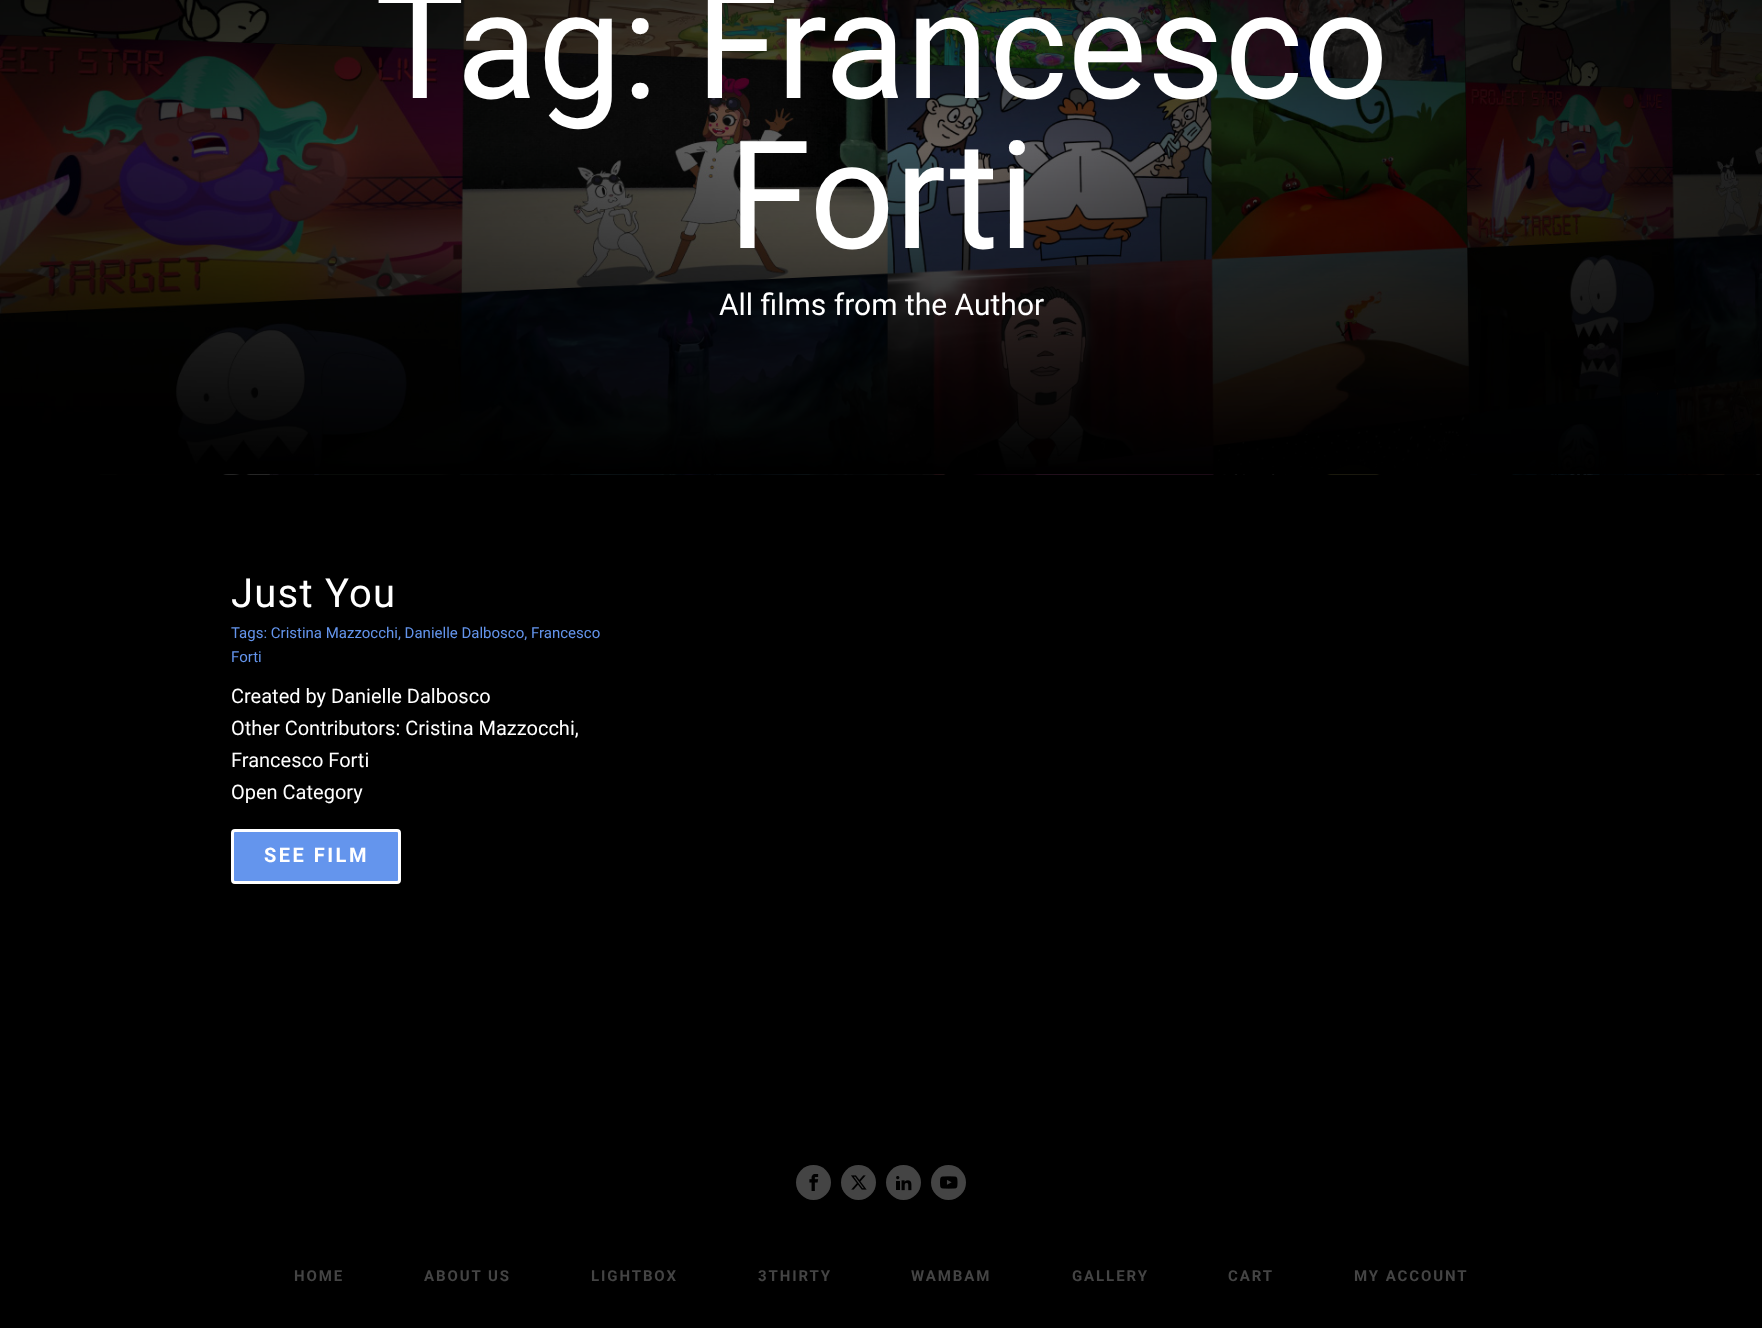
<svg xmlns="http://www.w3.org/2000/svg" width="1762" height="1328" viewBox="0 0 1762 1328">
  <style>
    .t1 { font: 150px Roboto; fill: #fff; }
    .t2 { font: 30px Roboto; fill: #fff; }
    .t3 { font: 40px Roboto; letter-spacing: 1.25px; fill: #fff; }
    .t4 { font: 15px Roboto; fill: #6495ed; }
    .t5 { font: 20px Roboto; fill: #fff; }
    .t6 { font: bold 20px Roboto; letter-spacing: 2.5px; fill: #fff; }
    .t7 { font: bold 15px Roboto; letter-spacing: 1.9px; fill: #444; }
  </style>
  <rect width="100%" height="100%" fill="#000"/>
  <image x="0" y="0" width="1762" height="475" href="images/1.png"/>
  <text x="375" y="98" class="t1">Tag: Francesco</text>
  <text x="728" y="248" class="t1">Forti</text>
  <text x="719" y="315" class="t2">All films from the Author</text>
  <text x="231" y="607" class="t3">Just You</text>
  <text x="231" y="638" class="t4">Tags: Cristina Mazzocchi, Danielle Dalbosco, Francesco</text>
  <text x="231" y="662" class="t4">Forti</text>
  <text x="231" y="703" class="t5">Created by Danielle Dalbosco</text>
  <text x="231" y="735" class="t5">Other Contributors: Cristina Mazzocchi,</text>
  <text x="231" y="767" class="t5">Francesco Forti</text>
  <text x="231" y="799" class="t5">Open Category</text>
  <rect x="232.5" y="830.5" width="167" height="52" rx="2.5" fill="#6495ed" stroke="#fff" stroke-width="3"/>
  <text x="264" y="862" class="t6">SEE FILM</text>
  <circle cx="813.5" cy="1182.5" r="17.5" fill="#444"/>
  <image x="809" y="1174" width="10" height="17" href="images/2.png"/>
  <circle cx="858.5" cy="1182.5" r="17.5" fill="#444"/>
  <image x="851" y="1175" width="16" height="15" href="images/3.png"/>
  <circle cx="903.5" cy="1182.5" r="17.5" fill="#444"/>
  <image x="896" y="1176" width="16" height="15" href="images/4.png"/>
  <circle cx="948.5" cy="1182.5" r="17.5" fill="#444"/>
  <image x="940" y="1176" width="18" height="13" href="images/5.png"/>
  <text x="294" y="1281" class="t7">HOME</text>
  <text x="424" y="1281" class="t7">ABOUT US</text>
  <text x="591" y="1281" class="t7">LIGHTBOX</text>
  <text x="758" y="1281" class="t7">3THIRTY</text>
  <text x="911" y="1281" class="t7">WAMBAM</text>
  <text x="1072" y="1281" class="t7">GALLERY</text>
  <text x="1228" y="1281" class="t7">CART</text>
  <text x="1354" y="1281" class="t7">MY ACCOUNT</text>
</svg>
